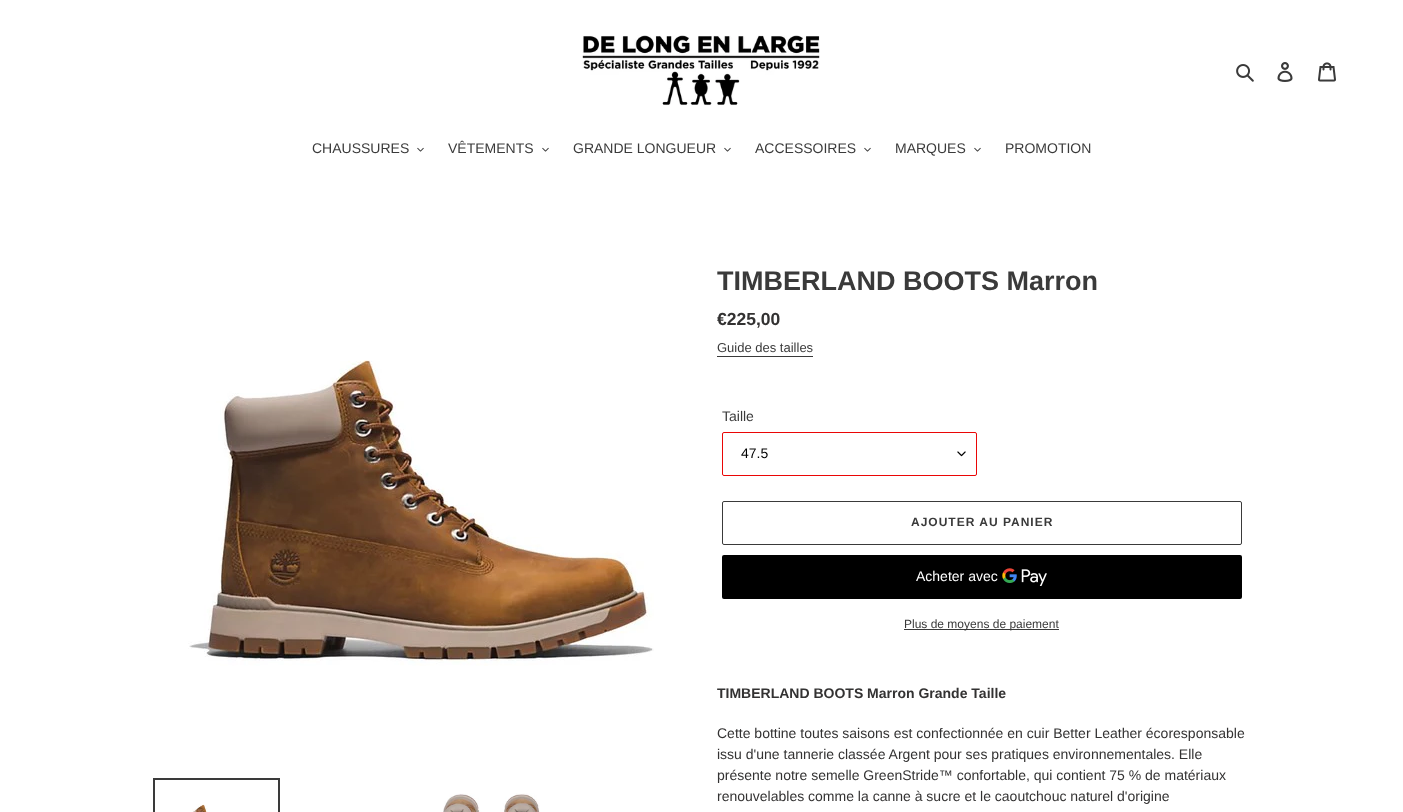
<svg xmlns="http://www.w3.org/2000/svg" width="1403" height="812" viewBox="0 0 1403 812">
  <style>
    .t1 { font: 14px Liberation Sans; fill: #3a3a3a; }
    .t2 { font: bold 27px Liberation Sans; fill: #3a3a3a; }
    .t3 { font: bold 17.5px Liberation Sans; fill: #333232; }
    .t4 { font: 13px Liberation Sans; fill: #3a3a3a; }
    .t5 { font: 14px Liberation Sans; fill: #000; }
    .t6 { font: bold 12px Liberation Sans; letter-spacing: 1px; fill: #3a3a3a; }
    .t7 { font: 14px Liberation Sans; fill: #fff; }
    .t8 { font: 12px Liberation Sans; fill: #3a3a3a; }
    .t9 { font: bold 14px Liberation Sans; fill: #333232; }
    .t10 { font: 14px Liberation Sans; fill: #333232; }
  </style>
  <rect width="100%" height="100%" fill="#fff"/>
  <image x="582" y="35" width="238" height="71" href="images/1.png"/>
  <image x="1236" y="64" width="18" height="18" href="images/2.png"/>
  <image x="1277" y="62" width="16" height="20" href="images/3.png"/>
  <image x="1318" y="62" width="18" height="20" href="images/4.png"/>
  <text x="312" y="153" class="t1">CHAUSSURES</text>
  <image x="417" y="147" width="7" height="5" href="images/5.png"/>
  <text x="448" y="153" class="t1">VÊTEMENTS</text>
  <image x="542" y="147" width="7" height="5" href="images/5.png"/>
  <text x="573" y="153" class="t1">GRANDE LONGUEUR</text>
  <image x="724" y="147" width="7" height="5" href="images/5.png"/>
  <text x="755" y="153" class="t1">ACCESSOIRES</text>
  <image x="864" y="147" width="7" height="5" href="images/5.png"/>
  <text x="895" y="153" class="t1">MARQUES</text>
  <image x="974" y="147" width="7" height="5" href="images/5.png"/>
  <text x="1005" y="153" class="t1">PROMOTION</text>
  <image x="188" y="360" width="466" height="306" href="images/6.png"/>
  <rect x="154" y="779" width="125" height="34" fill="none" stroke="#3a3a3a" stroke-width="2"/>
  <image x="192" y="804" width="16" height="8" href="images/7.png"/>
  <image x="443" y="793" width="97" height="19" href="images/8.png"/>
  <text x="717" y="290" class="t2">TIMBERLAND BOOTS Marron</text>
  <text x="717" y="325" class="t3">€225,00</text>
  <text x="717" y="352" class="t4">Guide des tailles</text>
  <rect x="717" y="356" width="96" height="1" fill="#3a3a3a"/>
  <text x="722" y="421" class="t1">Taille</text>
  <image x="957" y="451" width="9" height="6" href="images/9.png"/>
  <rect x="722.5" y="432.5" width="254" height="43" rx="1.5" fill="none" stroke="#ea0606"/>
  <text x="741" y="458" class="t5">47.5</text>
  <rect x="722.5" y="501.5" width="519" height="43" rx="1.5" fill="none" stroke="#3a3a3a"/>
  <text x="911" y="526" class="t6">AJOUTER AU PANIER</text>
  <rect x="722" y="555" width="520" height="44" rx="2" fill="#000"/>
  <text x="916" y="581" class="t7">Acheter avec</text>
  <image x="1002" y="568" width="45" height="18" href="images/10.png"/>
  <rect x="904" y="629" width="155" height="1" fill="#3a3a3a"/>
  <text x="904" y="628" class="t8">Plus de moyens de paiement</text>
  <text x="717" y="698" class="t9">TIMBERLAND BOOTS Marron Grande Taille</text>
  <text x="717" y="738" class="t10">Cette bottine toutes saisons est confectionnée en cuir Better Leather écoresponsable</text>
  <text x="717" y="759" class="t10">issu d'une tannerie classée Argent pour ses pratiques environnementales. Elle</text>
  <text x="717" y="780" class="t10">présente notre semelle GreenStride™ confortable, qui contient 75 % de matériaux</text>
  <text x="717" y="801" class="t10">renouvelables comme la canne à sucre et le caoutchouc naturel d'origine</text>
</svg>
